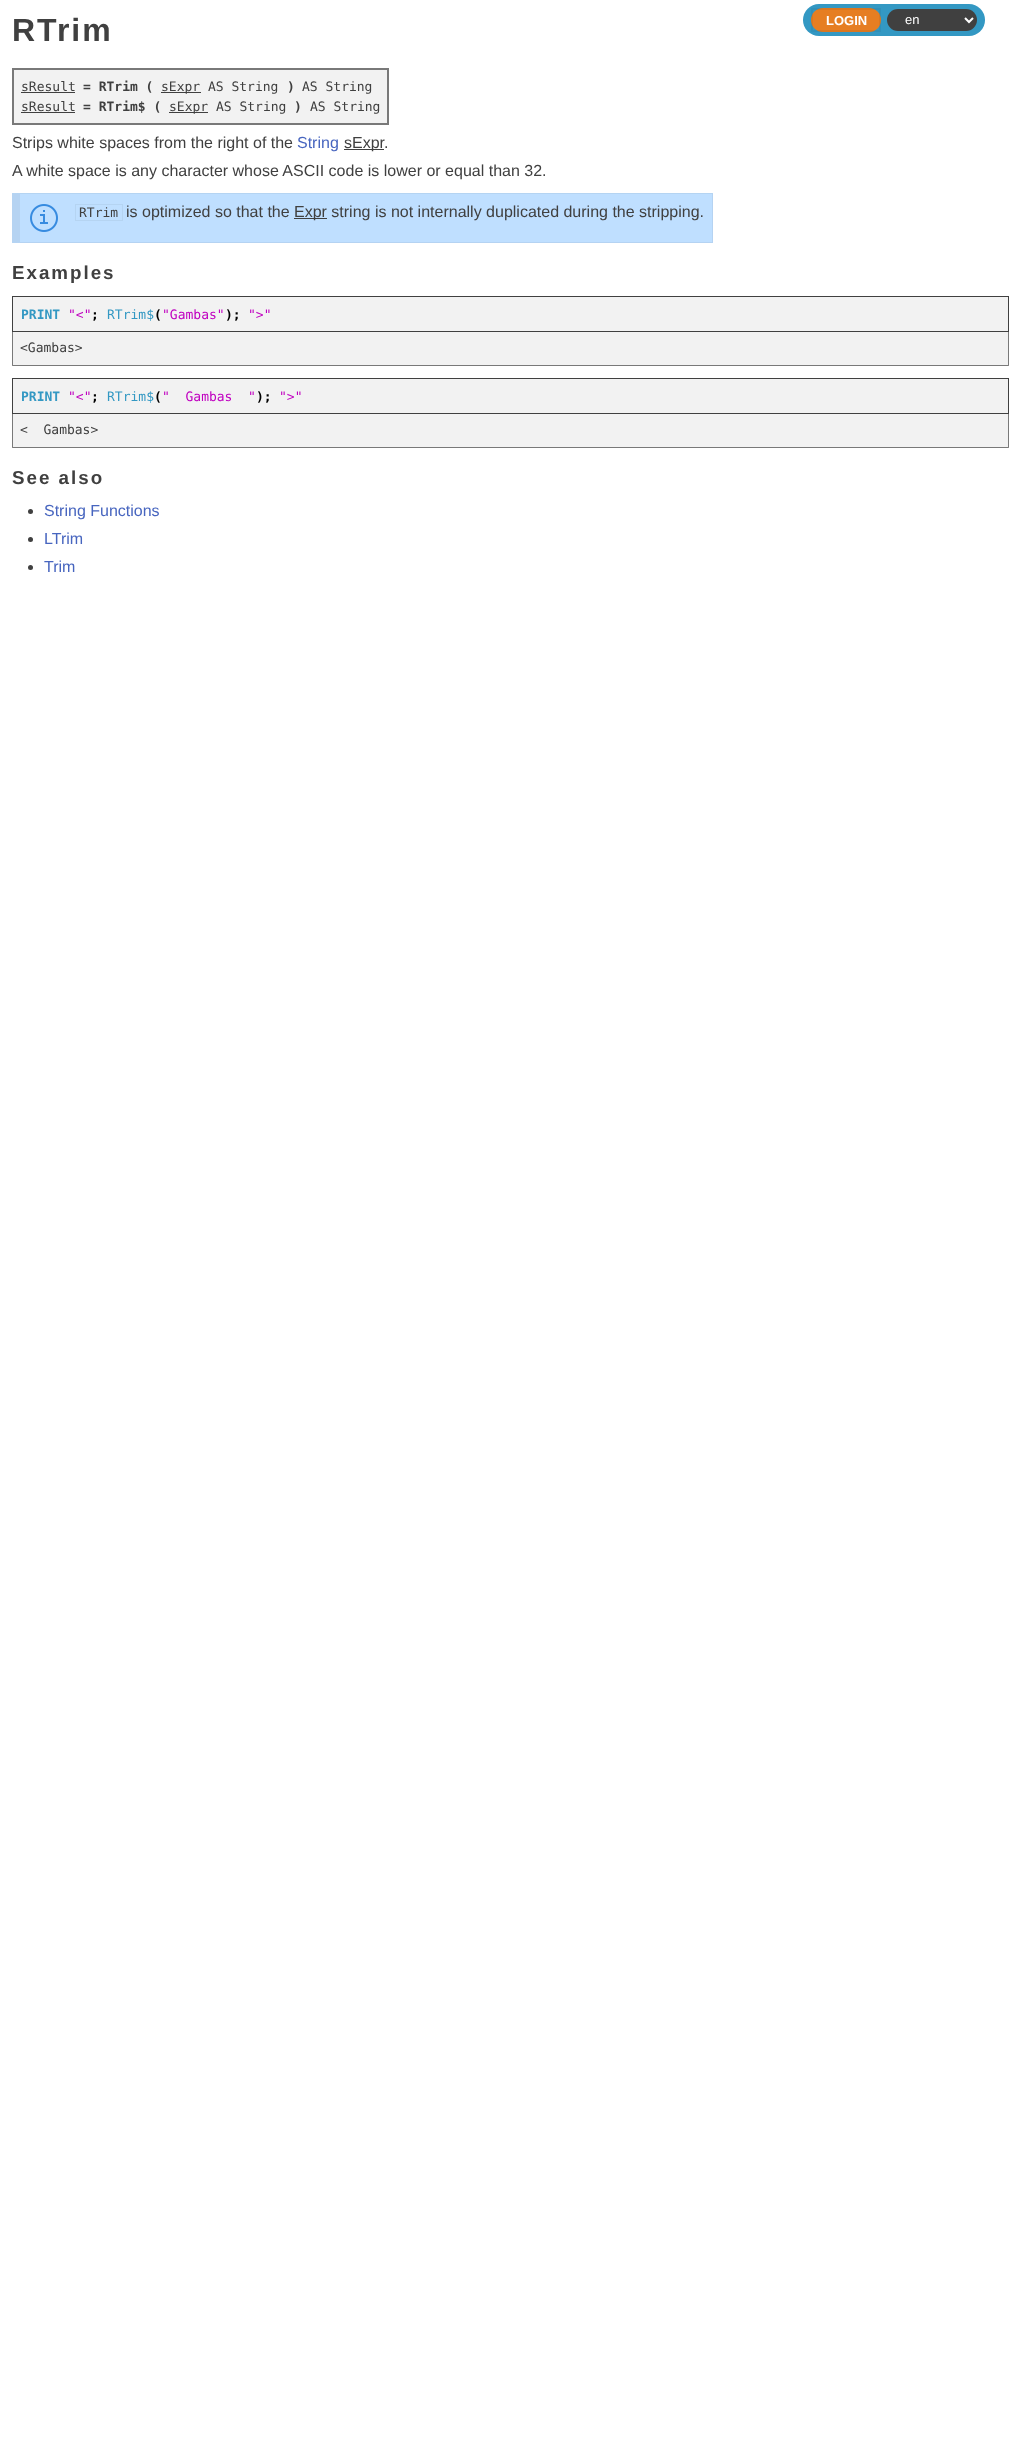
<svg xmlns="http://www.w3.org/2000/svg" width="1021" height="2456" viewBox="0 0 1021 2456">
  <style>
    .t1 { font: bold 32px Liberation Sans; letter-spacing: 2px; fill: #404040; }
    .t2 { font: 13px DejaVu Sans Mono; fill: #404040; }
    .t3 { font: bold 13px DejaVu Sans Mono; fill: #404040; }
    .t4 { font: 16px Liberation Sans; fill: #404040; }
    .t5 { font: 16px Liberation Sans; fill: #4765bf; }
    .t6 { font: bold 18.75px Liberation Sans; letter-spacing: 2px; fill: #404040; }
    .t7 { font: bold 13px DejaVu Sans Mono; fill: #3398c3; }
    .t8 { font: 13px DejaVu Sans Mono; fill: #c000c0; }
    .t9 { font: bold 13px DejaVu Sans Mono; fill: #000; }
    .t10 { font: 13px DejaVu Sans Mono; fill: #3398c3; }
    .t11 { font: bold 13px Liberation Sans; fill: #fff; }
    .t12 { font: 13px Liberation Sans; fill: #fff; }
  </style>
  <rect width="100%" height="100%" fill="#fff"/>
  <text x="12" y="41" class="t1">RTrim</text>
  <rect x="13" y="69" width="375" height="55" fill="#f2f2f2" stroke="#797979" stroke-width="2"/>
  <text x="21" y="91" class="t2">sResult</text>
  <rect x="21" y="92" width="54" height="1" fill="#404040"/>
  <text x="83" y="91" class="t3">= RTrim (</text>
  <rect x="161" y="92" width="40" height="1" fill="#404040"/>
  <text x="161" y="91" class="t2">sExpr AS String</text>
  <text x="287" y="91" class="t3">)</text>
  <text x="302" y="91" class="t2">AS String</text>
  <text x="21" y="111" class="t2">sResult</text>
  <rect x="21" y="112" width="54" height="1" fill="#404040"/>
  <text x="83" y="111" class="t3">= RTrim$ (</text>
  <rect x="169" y="112" width="39" height="1" fill="#404040"/>
  <text x="169" y="111" class="t2">sExpr AS String</text>
  <text x="294" y="111" class="t3">)</text>
  <text x="310" y="111" class="t2">AS String</text>
  <text x="12" y="148" class="t4">Strips white spaces from the right of the</text>
  <text x="297" y="148" class="t5">String</text>
  <rect x="344" y="149" width="40" height="1" fill="#404040"/>
  <text x="344" y="148" class="t4">sExpr</text>
  <text x="384" y="148" class="t4">.</text>
  <text x="12" y="176" class="t4">A white space is any character whose ASCII code is lower or equal than 32.</text>
  <rect x="12" y="193" width="701" height="50" fill="#bfdfff"/>
  <image x="30" y="204" width="28" height="28" href="images/1.png"/>
  <path d="M12 193H713L712 194H20Z" fill="#b5d4f2"/>
  <path d="M713 193V243L712 242V194Z" fill="#0000000d"/>
  <path d="M713 243H12L20 242H712Z" fill="#0000000d"/>
  <path d="M12 243V193L20 194V242Z" fill="#0000000d"/>
  <rect x="75.5" y="204.5" width="47" height="16" fill="none" stroke="#b5d4f2"/>
  <text x="79" y="217" class="t2">RTrim</text>
  <text x="126" y="217" class="t4">is optimized so that the</text>
  <rect x="294" y="218" width="33" height="1" fill="#404040"/>
  <text x="294" y="217" class="t4">Expr string is not internally duplicated during the stripping.</text>
  <text x="12" y="279" class="t6">Examples</text>
  <rect x="12.5" y="296.5" width="996" height="35" fill="#f2f2f2" stroke="#404040"/>
  <text x="21" y="319" class="t7">PRINT</text>
  <text x="68" y="319" class="t8">"&lt;"</text>
  <text x="91" y="319" class="t9">;</text>
  <text x="107" y="319" class="t10">RTrim$</text>
  <text x="154" y="319" class="t9">(</text>
  <text x="162" y="319" class="t8">"Gambas"</text>
  <text x="225" y="319" class="t9">);</text>
  <text x="248" y="319" class="t8">"&gt;"</text>
  <rect x="12" y="332" width="997" height="34" fill="#f2f2f2"/>
  <path d="M1009 332V366L1008 365V332Z" fill="#797979"/>
  <path d="M1009 366H12L13 365H1008Z" fill="#00000080"/>
  <path d="M12 366V332H13V365Z" fill="#00000080"/>
  <text x="20" y="352" class="t2">&lt;Gambas&gt;</text>
  <rect x="12.5" y="378.5" width="996" height="35" fill="#f2f2f2" stroke="#404040"/>
  <text x="21" y="401" class="t7">PRINT</text>
  <text x="68" y="401" class="t8">"&lt;"</text>
  <text x="91" y="401" class="t9">;</text>
  <text x="107" y="401" class="t10">RTrim$</text>
  <text x="154" y="401" class="t9">(</text>
  <text x="162" y="401" class="t8" xml:space="preserve">"  Gambas  "</text>
  <text x="256" y="401" class="t9">);</text>
  <text x="279" y="401" class="t8">"&gt;"</text>
  <rect x="12" y="414" width="997" height="34" fill="#f2f2f2"/>
  <path d="M1009 414V448L1008 447V414Z" fill="#797979"/>
  <path d="M1009 448H12L13 447H1008Z" fill="#00000080"/>
  <path d="M12 448V414H13V447Z" fill="#00000080"/>
  <text x="20" y="434" class="t2" xml:space="preserve">&lt;  Gambas&gt;</text>
  <text x="12" y="484" class="t6">See also</text>
  <circle cx="30.5" cy="511.5" r="2.5" fill="#404040"/>
  <text x="44" y="516" class="t5">String Functions</text>
  <circle cx="30.5" cy="539.5" r="2.5" fill="#404040"/>
  <text x="44" y="544" class="t5">LTrim</text>
  <circle cx="30.5" cy="567.5" r="2.5" fill="#404040"/>
  <text x="44" y="572" class="t5">Trim</text>
  <rect x="803" y="4" width="182" height="32" rx="16" fill="#3398c3"/>
  <rect x="811" y="8" width="70" height="24" rx="12" fill="#e67e22"/>
  <rect x="812" y="9" width="68" height="22" fill="none" stroke="#0000000d" stroke-width="2"/>
  <text x="826" y="25" class="t11">LOGIN</text>
  <rect x="887" y="9" width="90" height="22" rx="11" fill="#404040"/>
  <path d="M965 18L969 22L973 18" fill="none" stroke="#fff" stroke-width="2"/>
  <text x="905" y="24" class="t12">en</text>
</svg>
